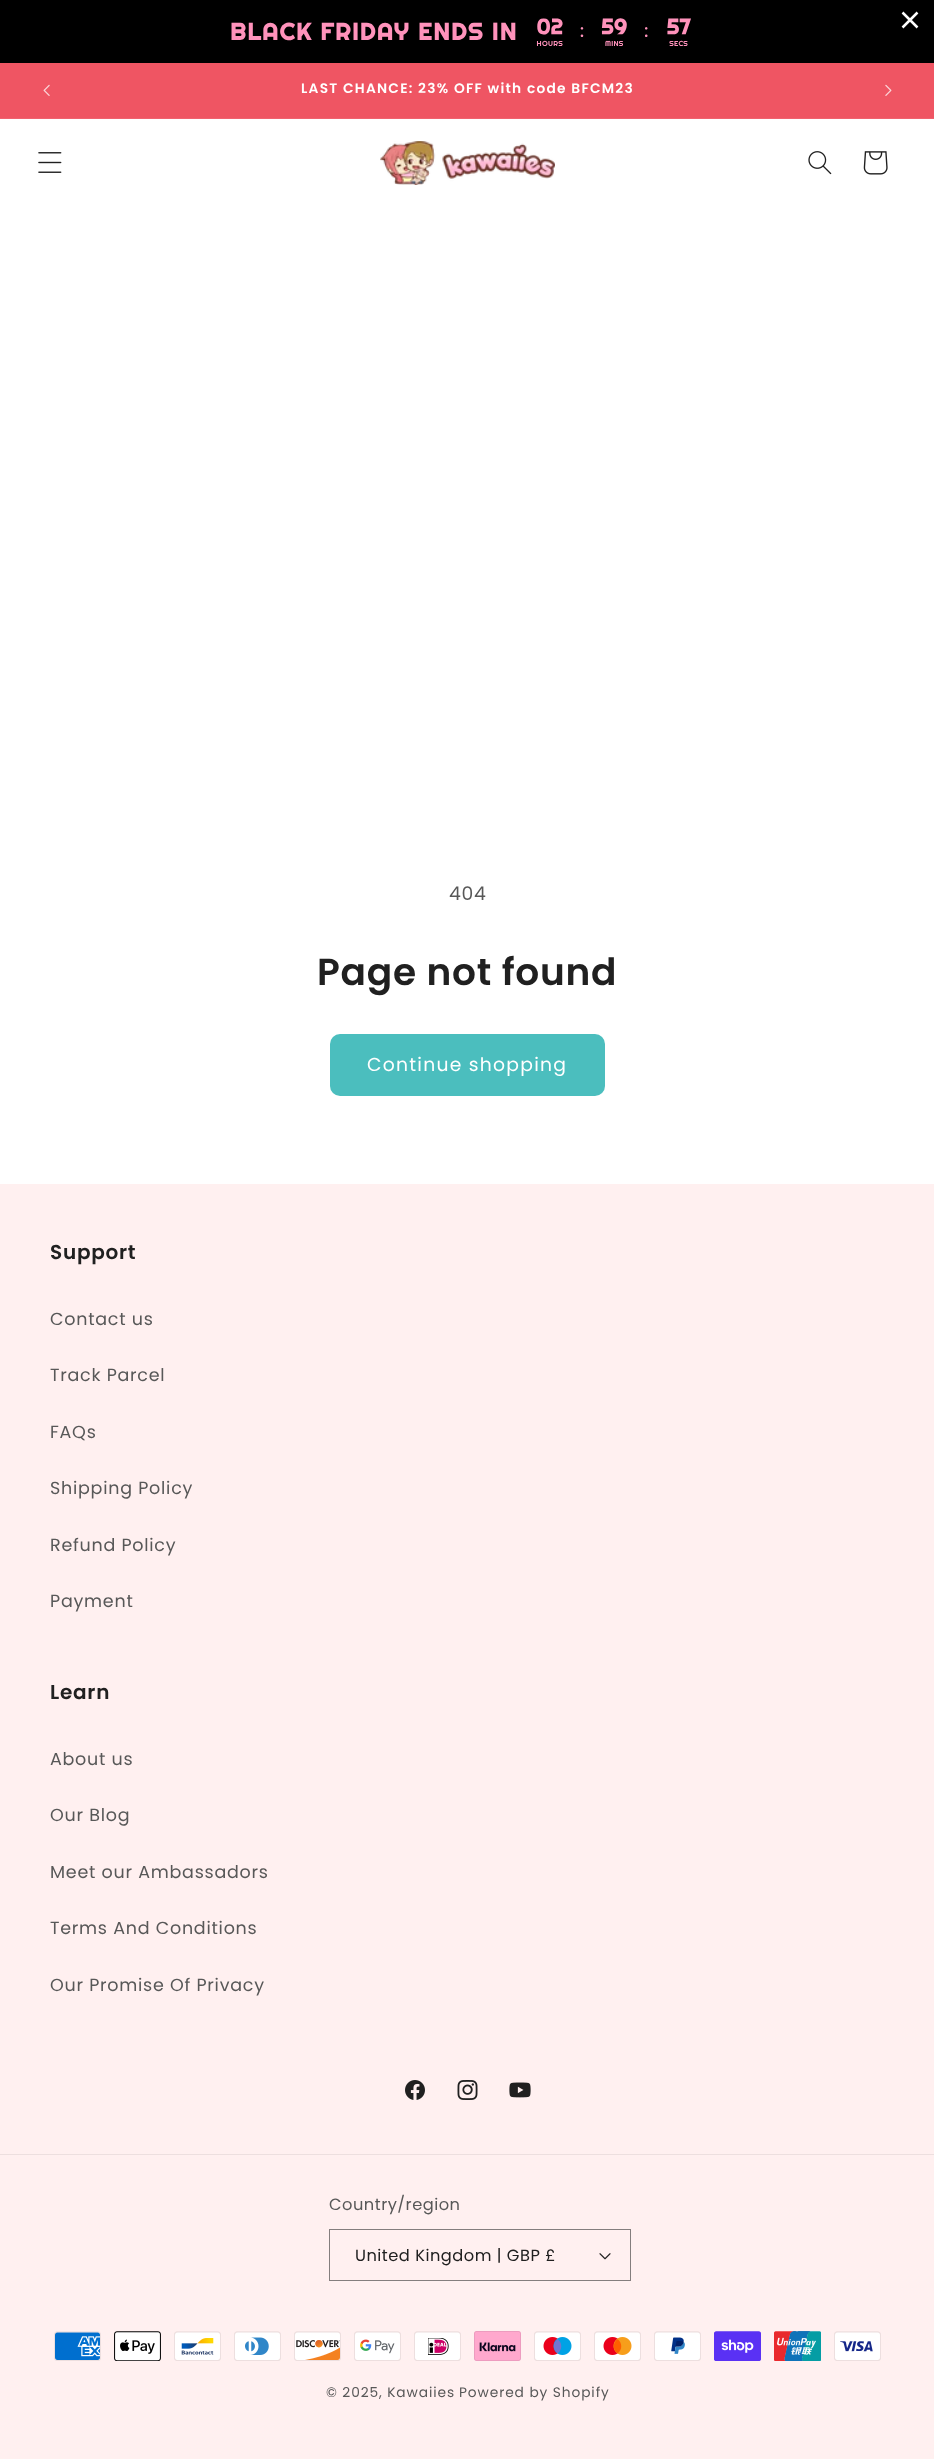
<svg xmlns="http://www.w3.org/2000/svg" width="934" height="2459" viewBox="0 0 934 2459">
  <style>
    .t1 { font: bold 23.75px Righteous; letter-spacing: 1.4px; fill: #ff92bb; }
    .t2 { font: 600 13.75px Poppins; letter-spacing: 1.25px; fill: #fff; }
    .t3 { font: 18.75px Poppins; letter-spacing: 0.75px; fill: #585858; }
    .t4 { font: 600 37.5px Poppins; letter-spacing: 0.75px; fill: #202020; }
    .t5 { font: 18.75px Poppins; letter-spacing: 1.25px; fill: #fff; }
    .t6 { font: 600 20px Poppins; letter-spacing: 0.75px; fill: #202020; }
    .t7 { font: 17.5px Poppins; letter-spacing: 0.75px; fill: #585858; }
    .t8 { font: 16.25px Poppins; letter-spacing: 0.5px; fill: #585858; }
    .t9 { font: 16.25px Poppins; letter-spacing: 0.5px; fill: #202020; }
    .t10 { font: 13.75px Poppins; letter-spacing: 0.9px; fill: #585858; }
  </style>
  <rect width="100%" height="100%" fill="#fff"/>
  <rect x="0" y="0" width="934" height="63" fill="#000"/>
  <path d="M917.5 12.5L902.5 27.5M917.5 27.5L902.5 12.5" fill="none" stroke="#fff" stroke-width="2.5"/>
  <text x="230" y="40" class="t1">BLACK FRIDAY ENDS IN</text>
  <image x="536" y="18" width="155" height="28" href="images/1.png"/>
  <rect x="0" y="63" width="934" height="55" fill="#ef5563"/>
  <rect x="0" y="118" width="934" height="1" fill="#f0636f"/>
  <image x="43" y="84" width="7" height="12" href="images/2.png"/>
  <text x="301" y="93" class="t2">LAST CHANCE: 23% OFF with code BFCM23</text>
  <image x="885" y="84" width="7" height="12" href="images/3.png"/>
  <image x="38" y="152" width="24" height="21" href="images/4.png"/>
  <image x="380" y="141" width="175" height="44" href="images/5.png"/>
  <image x="808" y="151" width="24" height="24" href="images/6.png"/>
  <image x="863" y="151" width="25" height="24" href="images/7.png"/>
  <text x="449" y="900" class="t3">404</text>
  <text x="317" y="985" class="t4">Page not found</text>
  <rect x="330" y="1034" width="275" height="62" rx="10" fill="#4bbebe"/>
  <text x="367" y="1071" class="t5">Continue shopping</text>
  <rect x="0" y="1184" width="934" height="1275" fill="#fff0f0"/>
  <text x="50" y="1259" class="t6">Support</text>
  <text x="50" y="1325" class="t7">Contact us</text>
  <text x="50" y="1381" class="t7">Track Parcel</text>
  <text x="50" y="1438" class="t7">FAQs</text>
  <text x="50" y="1494" class="t7">Shipping Policy</text>
  <text x="50" y="1551" class="t7">Refund Policy</text>
  <text x="50" y="1607" class="t7">Payment</text>
  <text x="50" y="1699" class="t6">Learn</text>
  <text x="50" y="1765" class="t7">About us</text>
  <text x="50" y="1821" class="t7">Our Blog</text>
  <text x="50" y="1878" class="t7">Meet our Ambassadors</text>
  <text x="50" y="1934" class="t7">Terms And Conditions</text>
  <text x="50" y="1991" class="t7">Our Promise Of Privacy</text>
  <image x="405" y="2080" width="20" height="20" href="images/8.png"/>
  <image x="457" y="2080" width="21" height="20" href="images/9.png"/>
  <image x="509" y="2082" width="22" height="16" href="images/10.png"/>
  <rect x="0" y="2154" width="934" height="1" fill="#eddfdf"/>
  <text x="329" y="2210" class="t8">Country/region</text>
  <image x="599" y="2253" width="12" height="7" href="images/11.png"/>
  <rect x="329.5" y="2229.5" width="301" height="51" fill="none" stroke="#847e7e"/>
  <text x="355" y="2261" class="t9">United Kingdom | GBP £</text>
  <image x="54" y="2331" width="47" height="30" href="images/12.png"/>
  <image x="114" y="2331" width="47" height="30" href="images/13.png"/>
  <image x="174" y="2331" width="47" height="30" href="images/14.png"/>
  <image x="234" y="2331" width="47" height="30" href="images/15.png"/>
  <image x="294" y="2331" width="47" height="30" href="images/16.png"/>
  <image x="354" y="2331" width="47" height="30" href="images/17.png"/>
  <image x="414" y="2331" width="47" height="30" href="images/18.png"/>
  <image x="474" y="2331" width="47" height="30" href="images/19.png"/>
  <image x="534" y="2331" width="47" height="30" href="images/20.png"/>
  <image x="594" y="2331" width="47" height="30" href="images/21.png"/>
  <image x="654" y="2331" width="47" height="30" href="images/22.png"/>
  <image x="714" y="2331" width="47" height="30" href="images/23.png"/>
  <image x="774" y="2331" width="47" height="30" href="images/24.png"/>
  <image x="834" y="2331" width="47" height="30" href="images/25.png"/>
  <text x="326" y="2397" class="t10">© 2025, Kawaiies</text>
  <text x="459" y="2397" class="t10">Powered by Shopify</text>
</svg>
